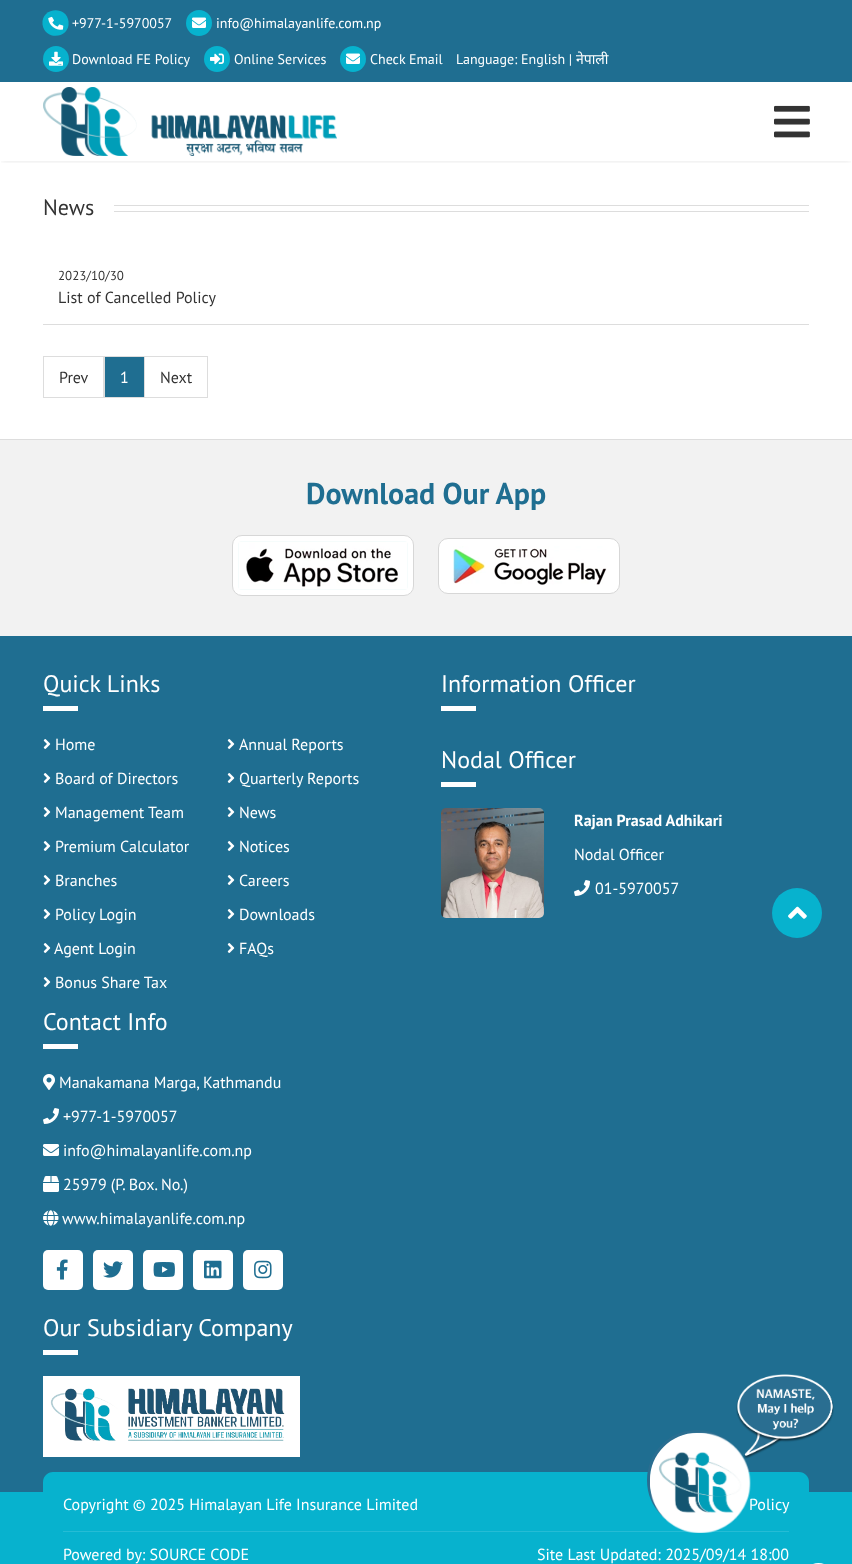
<svg xmlns="http://www.w3.org/2000/svg" width="852" height="1564" viewBox="0 0 852 1564">
  <style>
    .t1 { font: 14px PT Sans; fill: #fff; }
    .t2 { font: 14px Noto Sans; fill: #fff; }
    .t3 { font: 22px PT Sans; fill: #333; }
    .t4 { font: 13px PT Sans; fill: #333; }
    .t5 { font: 16px PT Sans; fill: #333; }
    .t6 { font: 16px PT Sans; fill: #fff; }
    .t7 { font: bold 30px PT Sans; fill: #1f6e91; }
    .t8 { font: 24px PT Sans; fill: #fff; }
    .t9 { font: bold 16px PT Sans; fill: #fff; }
  </style>
  <defs>
    <clipPath id="clip1"><rect x="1" y="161" width="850" height="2"/></clipPath>
  </defs>
  <rect width="100%" height="100%" fill="#fff"/>
  <rect x="0" y="0" width="852" height="82" fill="#1f6e91"/>
  <path d="M68.5 21.5C70.5 38.5 45 41.5 42.5 24.5C40.5 7.5 66.5 4.5 68.5 21.5Z" fill="#07b2ce"/>
  <image x="48" y="16" width="16" height="14" href="images/1.png"/>
  <text x="72" y="28" class="t1">+977-1-5970057</text>
  <circle cx="199" cy="23" r="13" fill="#07b2ce"/>
  <image x="192" y="17" width="14" height="11" href="images/2.png"/>
  <text x="216" y="28" class="t1">info@himalayanlife.com.np</text>
  <circle cx="56" cy="59" r="13" fill="#07b2ce"/>
  <image x="49" y="51" width="14" height="15" href="images/3.png"/>
  <text x="72" y="64" class="t1">Download FE Policy</text>
  <circle cx="217" cy="59" r="13" fill="#07b2ce"/>
  <image x="210" y="53" width="14" height="12" href="images/4.png"/>
  <text x="234" y="64" class="t1">Online Services</text>
  <circle cx="353" cy="59" r="13" fill="#07b2ce"/>
  <image x="346" y="53" width="14" height="11" href="images/2.png"/>
  <text x="370" y="64" class="t1">Check Email</text>
  <text x="456" y="64" class="t1">Language: English |</text>
  <text x="576" y="64" class="t2">नेपाली</text>
  <g clip-path="url(#clip1)">
    <rect x="2" y="85" width="848" height="75" fill="#00000026" filter="blur(3px)"/>
  </g>
  <image x="43" y="87" width="294" height="69" href="images/5.png"/>
  <image x="774" y="105" width="36" height="33" href="images/6.png"/>
  <text x="43" y="215" class="t3">News</text>
  <rect x="114" y="205" width="695" height="1" fill="#ddd"/>
  <rect x="114" y="211" width="695" height="1" fill="#ddd"/>
  <rect x="43" y="324" width="766" height="1" fill="#ddd"/>
  <text x="58" y="280" class="t4">2023/10/30</text>
  <text x="58" y="303" class="t5">List of Cancelled Policy</text>
  <rect x="43.5" y="356.5" width="60" height="41" fill="none" stroke="#ddd"/>
  <text x="59" y="383" class="t5">Prev</text>
  <rect x="104.5" y="356.5" width="40" height="41" fill="#1f6e91" stroke="#ddd"/>
  <text x="120" y="383" class="t6">1</text>
  <text x="160" y="383" class="t5">Next</text>
  <rect x="145" y="356" width="63" height="1" fill="#ddd"/>
  <rect x="207" y="356" width="1" height="42" fill="#ddd"/>
  <rect x="145" y="397" width="63" height="1" fill="#ddd"/>
  <rect x="0" y="440" width="852" height="196" fill="#f2f2f2"/>
  <rect x="0" y="439" width="852" height="1" fill="#ddd"/>
  <text x="306" y="504" class="t7">Download Our App</text>
  <rect x="232.5" y="535.5" width="181" height="60" rx="9.5" fill="#fff" stroke="#d7d7d7"/>
  <image x="238" y="541" width="170" height="49" href="images/7.png"/>
  <rect x="438.5" y="538.5" width="181" height="55" rx="9.5" fill="#fff" stroke="#d7d7d7"/>
  <image x="453" y="546" width="154" height="39" href="images/8.png"/>
  <rect x="0" y="636" width="852" height="856" fill="#1f6e91"/>
  <text x="43" y="692" class="t8">Quick Links</text>
  <rect x="43" y="706" width="35" height="5" fill="#fff"/>
  <image x="43" y="739" width="8" height="10" href="images/9.png"/>
  <text x="55" y="750" class="t6">Home</text>
  <image x="227" y="739" width="8" height="10" href="images/9.png"/>
  <text x="239" y="750" class="t6">Annual Reports</text>
  <image x="43" y="773" width="8" height="10" href="images/9.png"/>
  <text x="55" y="784" class="t6">Board of Directors</text>
  <image x="227" y="773" width="8" height="10" href="images/9.png"/>
  <text x="239" y="784" class="t6">Quarterly Reports</text>
  <image x="43" y="807" width="8" height="10" href="images/9.png"/>
  <text x="55" y="818" class="t6">Management Team</text>
  <image x="227" y="807" width="8" height="10" href="images/9.png"/>
  <text x="239" y="818" class="t6">News</text>
  <image x="43" y="841" width="8" height="10" href="images/9.png"/>
  <text x="55" y="852" class="t6">Premium Calculator</text>
  <image x="227" y="841" width="8" height="10" href="images/9.png"/>
  <text x="239" y="852" class="t6">Notices</text>
  <image x="43" y="875" width="8" height="10" href="images/9.png"/>
  <text x="55" y="886" class="t6">Branches</text>
  <image x="227" y="875" width="8" height="10" href="images/9.png"/>
  <text x="239" y="886" class="t6">Careers</text>
  <image x="43" y="909" width="8" height="10" href="images/9.png"/>
  <text x="55" y="920" class="t6">Policy Login</text>
  <image x="227" y="909" width="8" height="10" href="images/9.png"/>
  <text x="239" y="920" class="t6">Downloads</text>
  <image x="43" y="943" width="8" height="10" href="images/9.png"/>
  <text x="54" y="954" class="t6">Agent Login</text>
  <image x="227" y="943" width="8" height="10" href="images/9.png"/>
  <text x="239" y="954" class="t6">FAQs</text>
  <image x="43" y="977" width="8" height="10" href="images/9.png"/>
  <text x="55" y="988" class="t6">Bonus Share Tax</text>
  <text x="441" y="692" class="t8">Information Officer</text>
  <rect x="441" y="706" width="35" height="5" fill="#fff"/>
  <text x="441" y="768" class="t8">Nodal Officer</text>
  <rect x="441" y="782" width="35" height="5" fill="#fff"/>
  <image x="441" y="808" width="103" height="110" href="images/10.png"/>
  <text x="574" y="826" class="t9">Rajan Prasad Adhikari</text>
  <text x="574" y="860" class="t6">Nodal Officer</text>
  <image x="574" y="880" width="16" height="16" href="images/11.png"/>
  <text x="595" y="894" class="t6">01-5970057</text>
  <text x="43" y="1030" class="t8">Contact Info</text>
  <rect x="43" y="1044" width="35" height="5" fill="#fff"/>
  <image x="43" y="1074" width="12" height="16" href="images/12.png"/>
  <text x="59" y="1088" class="t6">Manakamana Marga, Kathmandu</text>
  <image x="43" y="1108" width="16" height="16" href="images/11.png"/>
  <text x="63" y="1122" class="t6">+977-1-5970057</text>
  <image x="43" y="1144" width="16" height="12" href="images/13.png"/>
  <text x="63" y="1156" class="t6">info@himalayanlife.com.np</text>
  <image x="43" y="1176" width="16" height="16" href="images/14.png"/>
  <text x="63" y="1190" class="t6">25979 (P. Box. No.)</text>
  <image x="43" y="1210" width="16" height="16" href="images/15.png"/>
  <text x="62" y="1224" class="t6">www.himalayanlife.com.np</text>
  <rect x="43" y="1250" width="40" height="40" rx="5" fill="#fff"/>
  <image x="56" y="1259" width="12" height="21" href="images/16.png"/>
  <rect x="93" y="1250" width="40" height="40" rx="5" fill="#fff"/>
  <image x="103" y="1261" width="20" height="17" href="images/17.png"/>
  <rect x="143" y="1250" width="40" height="40" rx="5" fill="#fff"/>
  <image x="153" y="1262" width="22" height="15" href="images/18.png"/>
  <rect x="193" y="1250" width="40" height="40" rx="5" fill="#fff"/>
  <image x="204" y="1260" width="18" height="19" href="images/19.png"/>
  <rect x="243" y="1250" width="40" height="40" rx="5" fill="#fff"/>
  <image x="254" y="1260" width="18" height="19" href="images/20.png"/>
  <text x="43" y="1336" class="t8">Our Subsidiary Company</text>
  <rect x="43" y="1350" width="35" height="5" fill="#fff"/>
  <rect x="43" y="1376" width="257" height="81" fill="#fff"/>
  <image x="50" y="1388" width="235" height="53" href="images/21.png"/>
  <circle cx="797" cy="913" r="25" fill="#07b2ce"/>
  <image x="788" y="906" width="19" height="13" href="images/22.png"/>
  <rect x="0" y="1492" width="852" height="72" fill="#07b2ce"/>
  <path d="M53 1472H799C804.5 1472 809 1476.5 809 1482V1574H43V1482C43 1476.5 47.5 1472 53 1472Z" fill="#07b2ce"/>
  <circle cx="697" cy="1480" r="48.5" fill="#fff" stroke="#2a6e91" stroke-width="3"/>
  <text x="749" y="1510" class="t6">Policy</text>
  <rect x="63" y="1531" width="726" height="1" fill="#25bcd5"/>
  <image x="650" y="1432" width="101" height="101" href="images/24.png"/>
  <image x="736" y="1374" width="98" height="85" href="images/23.png"/>
  <text x="63" y="1510" class="t6">Copyright © 2025 Himalayan Life Insurance Limited</text>
  <text x="63" y="1560" class="t6">Powered by: SOURCE CODE</text>
  <text x="537" y="1560" class="t6">Site Last Updated: 2025/09/14 18:00</text>
  <rect x="809" y="1563" width="19" height="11" rx="9.5" fill="#fff"/>
</svg>
